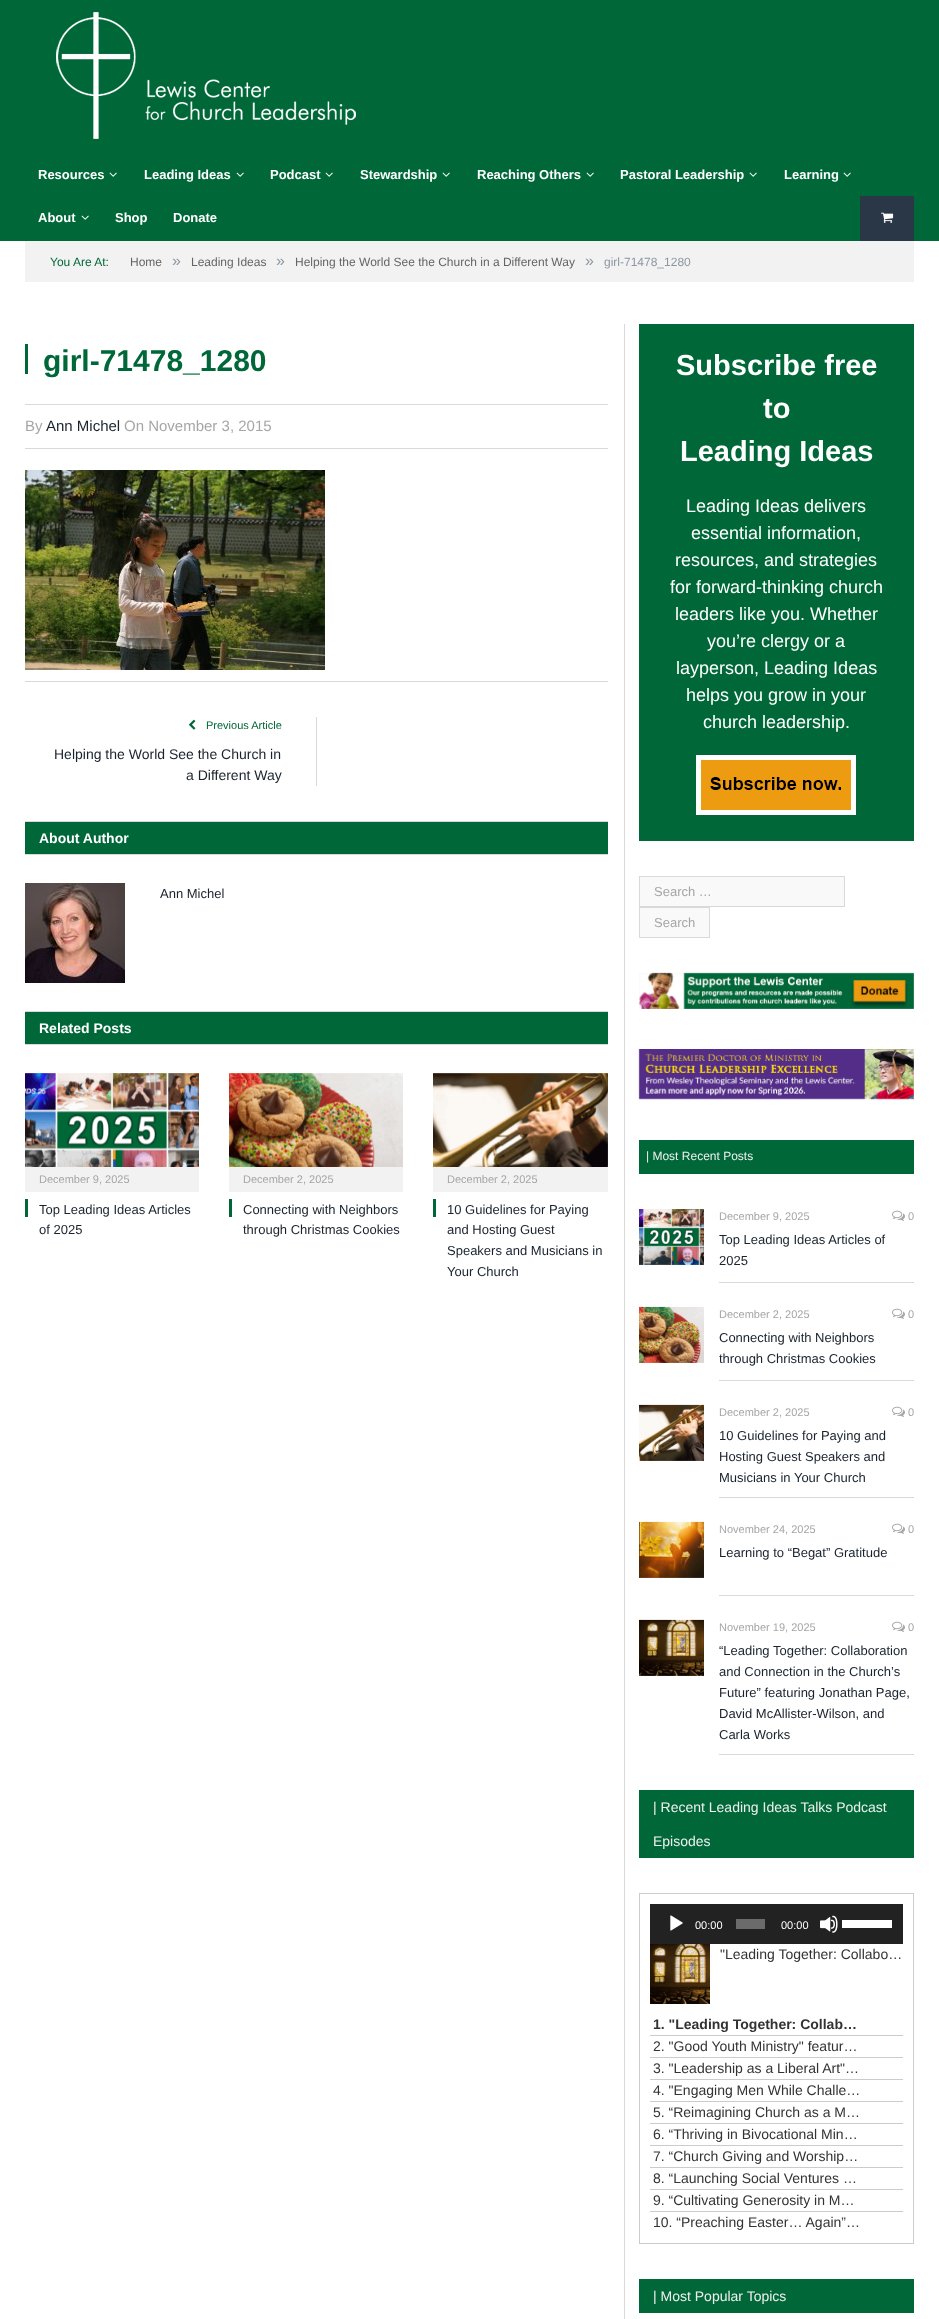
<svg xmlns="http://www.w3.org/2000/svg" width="939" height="2319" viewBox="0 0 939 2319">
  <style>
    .t1 { font: bold 13px Liberation Sans; fill: #fff; }
    .t2 { font: 12px Liberation Sans; fill: #006838; }
    .t3 { font: 12px Liberation Sans; fill: #656565; }
    .t4 { font: 16px Liberation Sans; fill: #8d97a1; }
    .t5 { font: 12px Liberation Sans; fill: #8d97a1; }
    .t6 { font: bold 30px Liberation Sans; fill: #006838; }
    .t7 { font: 15px Liberation Sans; fill: #a6a6a6; }
    .t8 { font: 15px Liberation Sans; fill: #19232d; }
    .t9 { font: 11px Liberation Sans; fill: #006838; }
    .t10 { font: 14px Liberation Sans; fill: #19232d; }
    .t11 { font: bold 14px Liberation Sans; fill: #fff; }
    .t12 { font: 13px Liberation Sans; fill: #19232d; }
    .t13 { font: 11px Liberation Sans; fill: #a6a6a6; }
    .t14 { font: bold 29px Liberation Sans; fill: #fff; }
    .t15 { font: 18px Liberation Sans; fill: #fff; }
    .t16 { font: 13px Liberation Sans; fill: #a6a6a6; }
    .t17 { font: 12px Liberation Sans; fill: #efefef; }
    .t18 { font: 14px Liberation Sans; fill: #efefef; }
    .t19 { font: 11px Liberation Sans; fill: #fff; }
    .t20 { font: 14px Liberation Sans; fill: #333; }
    .t21 { font: bold 14px Liberation Sans; fill: #333; }
  </style>
  <rect width="100%" height="100%" fill="#fff"/>
  <rect x="0" y="0" width="939" height="241" fill="#006838"/>
  <image x="56" y="12" width="300" height="127" href="images/1.png"/>
  <text x="38" y="179" class="t1">Resources</text>
  <image x="109" y="172" width="8" height="5" href="images/2.png"/>
  <text x="144" y="179" class="t1">Leading Ideas</text>
  <image x="236" y="172" width="8" height="5" href="images/2.png"/>
  <text x="270" y="179" class="t1">Podcast</text>
  <image x="325" y="172" width="8" height="5" href="images/2.png"/>
  <text x="360" y="179" class="t1">Stewardship</text>
  <image x="442" y="172" width="8" height="5" href="images/2.png"/>
  <text x="477" y="179" class="t1">Reaching Others</text>
  <image x="586" y="172" width="8" height="5" href="images/2.png"/>
  <text x="620" y="179" class="t1">Pastoral Leadership</text>
  <image x="749" y="172" width="8" height="5" href="images/2.png"/>
  <text x="784" y="179" class="t1">Learning</text>
  <image x="843" y="172" width="8" height="5" href="images/2.png"/>
  <text x="38" y="222" class="t1">About</text>
  <image x="81" y="215" width="8" height="5" href="images/2.png"/>
  <text x="115" y="222" class="t1">Shop</text>
  <text x="173" y="222" class="t1">Donate</text>
  <rect x="860" y="196" width="54" height="45" fill="#2a3746"/>
  <image x="881" y="212" width="13" height="11" href="images/3.png"/>
  <rect x="25" y="241" width="889" height="41" fill="#f2f2f2"/>
  <text x="50" y="266" class="t2">You Are At:</text>
  <text x="130" y="266" class="t3">Home</text>
  <text x="172" y="266" class="t4">»</text>
  <text x="191" y="266" class="t3">Leading Ideas</text>
  <text x="276" y="266" class="t4">»</text>
  <text x="295" y="266" class="t3">Helping the World See the Church in a Different Way</text>
  <text x="585" y="266" class="t4">»</text>
  <text x="604" y="266" class="t5">girl-71478_1280</text>
  <rect x="25" y="344" width="3" height="30" fill="#006838"/>
  <text x="43" y="371" class="t6">girl-71478_1280</text>
  <rect x="25" y="404" width="583" height="1" fill="#d9d9d9"/>
  <rect x="25" y="448" width="583" height="1" fill="#d9d9d9"/>
  <text x="25" y="431" class="t7">By</text>
  <text x="46" y="431" class="t8">Ann Michel</text>
  <text x="124" y="431" class="t7">On November 3, 2015</text>
  <image x="25" y="470" width="300" height="200" href="images/4.png"/>
  <rect x="25" y="681" width="583" height="1" fill="#d9d9d9"/>
  <image x="189" y="719" width="7" height="11" href="images/5.png"/>
  <text x="206" y="729" class="t9">Previous Article</text>
  <text x="54" y="759" class="t10">Helping the World See the Church in</text>
  <text x="186" y="780" class="t10">a Different Way</text>
  <rect x="316" y="717" width="1" height="69" fill="#d9d9d9"/>
  <rect x="25" y="822" width="583" height="32" fill="#006838"/>
  <rect x="25" y="821" width="583" height="1" fill="#d9d9d9"/>
  <rect x="25" y="854" width="583" height="1" fill="#d9d9d9"/>
  <text x="39" y="843" class="t11">About Author</text>
  <image x="25" y="883" width="100" height="100" href="images/6.png"/>
  <text x="160" y="898" class="t12">Ann Michel</text>
  <rect x="25" y="1012" width="583" height="32" fill="#006838"/>
  <rect x="25" y="1011" width="583" height="1" fill="#d9d9d9"/>
  <rect x="25" y="1044" width="583" height="1" fill="#d9d9d9"/>
  <text x="39" y="1033" class="t11">Related Posts</text>
  <image x="25" y="1073" width="174" height="94" href="images/7.png"/>
  <rect x="25" y="1167" width="174" height="25" fill="#f2f2f2"/>
  <text x="39" y="1183" class="t13">December 9, 2025</text>
  <rect x="25" y="1199" width="3" height="18" fill="#006838"/>
  <text x="39" y="1214" class="t12">Top Leading Ideas Articles</text>
  <text x="39" y="1234" class="t12">of 2025</text>
  <image x="229" y="1073" width="174" height="94" href="images/8.png"/>
  <rect x="229" y="1167" width="174" height="25" fill="#f2f2f2"/>
  <text x="243" y="1183" class="t13">December 2, 2025</text>
  <rect x="229" y="1199" width="3" height="18" fill="#006838"/>
  <text x="243" y="1214" class="t12">Connecting with Neighbors</text>
  <text x="243" y="1234" class="t12">through Christmas Cookies</text>
  <image x="433" y="1073" width="175" height="94" href="images/9.png"/>
  <rect x="433" y="1167" width="175" height="25" fill="#f2f2f2"/>
  <text x="447" y="1183" class="t13">December 2, 2025</text>
  <rect x="433" y="1199" width="3" height="18" fill="#006838"/>
  <text x="447" y="1214" class="t12">10 Guidelines for Paying</text>
  <text x="447" y="1234" class="t12">and Hosting Guest</text>
  <text x="447" y="1255" class="t12">Speakers and Musicians in</text>
  <text x="447" y="1276" class="t12">Your Church</text>
  <rect x="624" y="324" width="1" height="1995" fill="#d9d9d9"/>
  <rect x="639" y="324" width="275" height="517" fill="#006838"/>
  <text x="676" y="375" class="t14">Subscribe free</text>
  <text x="763" y="418" class="t14">to</text>
  <text x="680" y="461" class="t14">Leading Ideas</text>
  <text x="686" y="512" class="t15">Leading Ideas delivers</text>
  <text x="691" y="539" class="t15">essential information,</text>
  <text x="675" y="566" class="t15">resources, and strategies</text>
  <text x="670" y="593" class="t15">for forward-thinking church</text>
  <text x="675" y="620" class="t15">leaders like you. Whether</text>
  <text x="707" y="647" class="t15">you’re clergy or a</text>
  <text x="676" y="674" class="t15">layperson, Leading Ideas</text>
  <text x="686" y="701" class="t15">helps you grow in your</text>
  <text x="703" y="728" class="t15">church leadership.</text>
  <image x="696" y="755" width="160" height="60" href="images/10.png"/>
  <rect x="639.5" y="876.5" width="205" height="30" fill="#f9f9f9" stroke="#d9d9d9"/>
  <text x="654" y="896" class="t16">Search …</text>
  <rect x="639.5" y="907.5" width="70" height="30" fill="#f9f9f9" stroke="#d9d9d9"/>
  <text x="654" y="927" class="t16">Search</text>
  <image x="638" y="972" width="276" height="37" href="images/11.png"/>
  <image x="638" y="1049" width="276" height="51" href="images/12.png"/>
  <rect x="639" y="1140" width="275" height="34" fill="#006838"/>
  <text x="646" y="1160" class="t17">| Most Recent Posts</text>
  <image x="639" y="1209" width="65" height="56" href="images/13.png"/>
  <rect x="719" y="1282" width="195" height="1" fill="#d9d9d9"/>
  <text x="719" y="1220" class="t13">December 9, 2025</text>
  <image x="892" y="1210" width="13" height="11" href="images/14.png"/>
  <text x="908" y="1220" class="t13">0</text>
  <text x="719" y="1244" class="t12">Top Leading Ideas Articles of</text>
  <text x="719" y="1265" class="t12">2025</text>
  <image x="639" y="1306" width="65" height="57" href="images/15.png"/>
  <rect x="719" y="1380" width="195" height="1" fill="#d9d9d9"/>
  <text x="719" y="1318" class="t13">December 2, 2025</text>
  <image x="892" y="1308" width="13" height="11" href="images/14.png"/>
  <text x="908" y="1318" class="t13">0</text>
  <text x="719" y="1342" class="t12">Connecting with Neighbors</text>
  <text x="719" y="1363" class="t12">through Christmas Cookies</text>
  <image x="639" y="1404" width="65" height="57" href="images/16.png"/>
  <rect x="719" y="1497" width="195" height="1" fill="#d9d9d9"/>
  <text x="719" y="1416" class="t13">December 2, 2025</text>
  <image x="892" y="1406" width="13" height="11" href="images/14.png"/>
  <text x="908" y="1416" class="t13">0</text>
  <text x="719" y="1440" class="t12">10 Guidelines for Paying and</text>
  <text x="719" y="1461" class="t12">Hosting Guest Speakers and</text>
  <text x="719" y="1482" class="t12">Musicians in Your Church</text>
  <image x="639" y="1521" width="65" height="57" href="images/17.png"/>
  <rect x="719" y="1595" width="195" height="1" fill="#d9d9d9"/>
  <text x="719" y="1533" class="t13">November 24, 2025</text>
  <image x="892" y="1523" width="13" height="11" href="images/14.png"/>
  <text x="908" y="1533" class="t13">0</text>
  <text x="719" y="1557" class="t12">Learning to “Begat” Gratitude</text>
  <image x="639" y="1619" width="65" height="57" href="images/18.png"/>
  <rect x="719" y="1754" width="195" height="1" fill="#d9d9d9"/>
  <text x="719" y="1631" class="t13">November 19, 2025</text>
  <image x="892" y="1621" width="13" height="11" href="images/14.png"/>
  <text x="908" y="1631" class="t13">0</text>
  <text x="719" y="1655" class="t12">“Leading Together: Collaboration</text>
  <text x="719" y="1676" class="t12">and Connection in the Church’s</text>
  <text x="719" y="1697" class="t12">Future” featuring Jonathan Page,</text>
  <text x="719" y="1718" class="t12">David McAllister-Wilson, and</text>
  <text x="719" y="1739" class="t12">Carla Works</text>
  <rect x="639" y="1790" width="275" height="68" fill="#006838"/>
  <text x="653" y="1812" class="t18">| Recent Leading Ideas Talks Podcast</text>
  <text x="653" y="1846" class="t18">Episodes</text>
  <rect x="639.5" y="1893.5" width="274" height="350" fill="none" stroke="#ccc"/>
  <rect x="650" y="1904" width="253" height="40" fill="#222"/>
  <image x="670" y="1915" width="13" height="16" href="images/19.png"/>
  <text x="695" y="1929" class="t19">00:00</text>
  <rect x="736" y="1919" width="29" height="10" fill="#6b6b6b"/>
  <text x="781" y="1929" class="t19">00:00</text>
  <image x="820" y="1915" width="18" height="18" href="images/20.png"/>
  <rect x="842" y="1920" width="50" height="8" fill="#fff"/>
  <image x="650" y="1944" width="60" height="60" href="images/21.png"/>
  <text x="720" y="1959" class="t20">"Leading Together: Collabo…</text>
  <rect x="650" y="2035" width="253" height="1" fill="#ccc"/>
  <text x="653" y="2029" class="t21">1. "Leading Together: Collab…</text>
  <rect x="650" y="2057" width="253" height="1" fill="#ccc"/>
  <text x="653" y="2051" class="t20">2. "Good Youth Ministry" featur…</text>
  <rect x="650" y="2079" width="253" height="1" fill="#ccc"/>
  <text x="653" y="2073" class="t20">3. "Leadership as a Liberal Art"…</text>
  <rect x="650" y="2101" width="253" height="1" fill="#ccc"/>
  <text x="653" y="2095" class="t20">4. "Engaging Men While Challe…</text>
  <rect x="650" y="2123" width="253" height="1" fill="#ccc"/>
  <text x="653" y="2117" class="t20">5. “Reimagining Church as a M…</text>
  <rect x="650" y="2145" width="253" height="1" fill="#ccc"/>
  <text x="653" y="2139" class="t20">6. “Thriving in Bivocational Min…</text>
  <rect x="650" y="2167" width="253" height="1" fill="#ccc"/>
  <text x="653" y="2161" class="t20">7. “Church Giving and Worship…</text>
  <rect x="650" y="2189" width="253" height="1" fill="#ccc"/>
  <text x="653" y="2183" class="t20">8. “Launching Social Ventures …</text>
  <rect x="650" y="2211" width="253" height="1" fill="#ccc"/>
  <text x="653" y="2205" class="t20">9. “Cultivating Generosity in M…</text>
  <text x="653" y="2227" class="t20">10. “Preaching Easter… Again”…</text>
  <rect x="639" y="2279" width="275" height="34" fill="#006838"/>
  <text x="653" y="2301" class="t18">| Most Popular Topics</text>
</svg>
